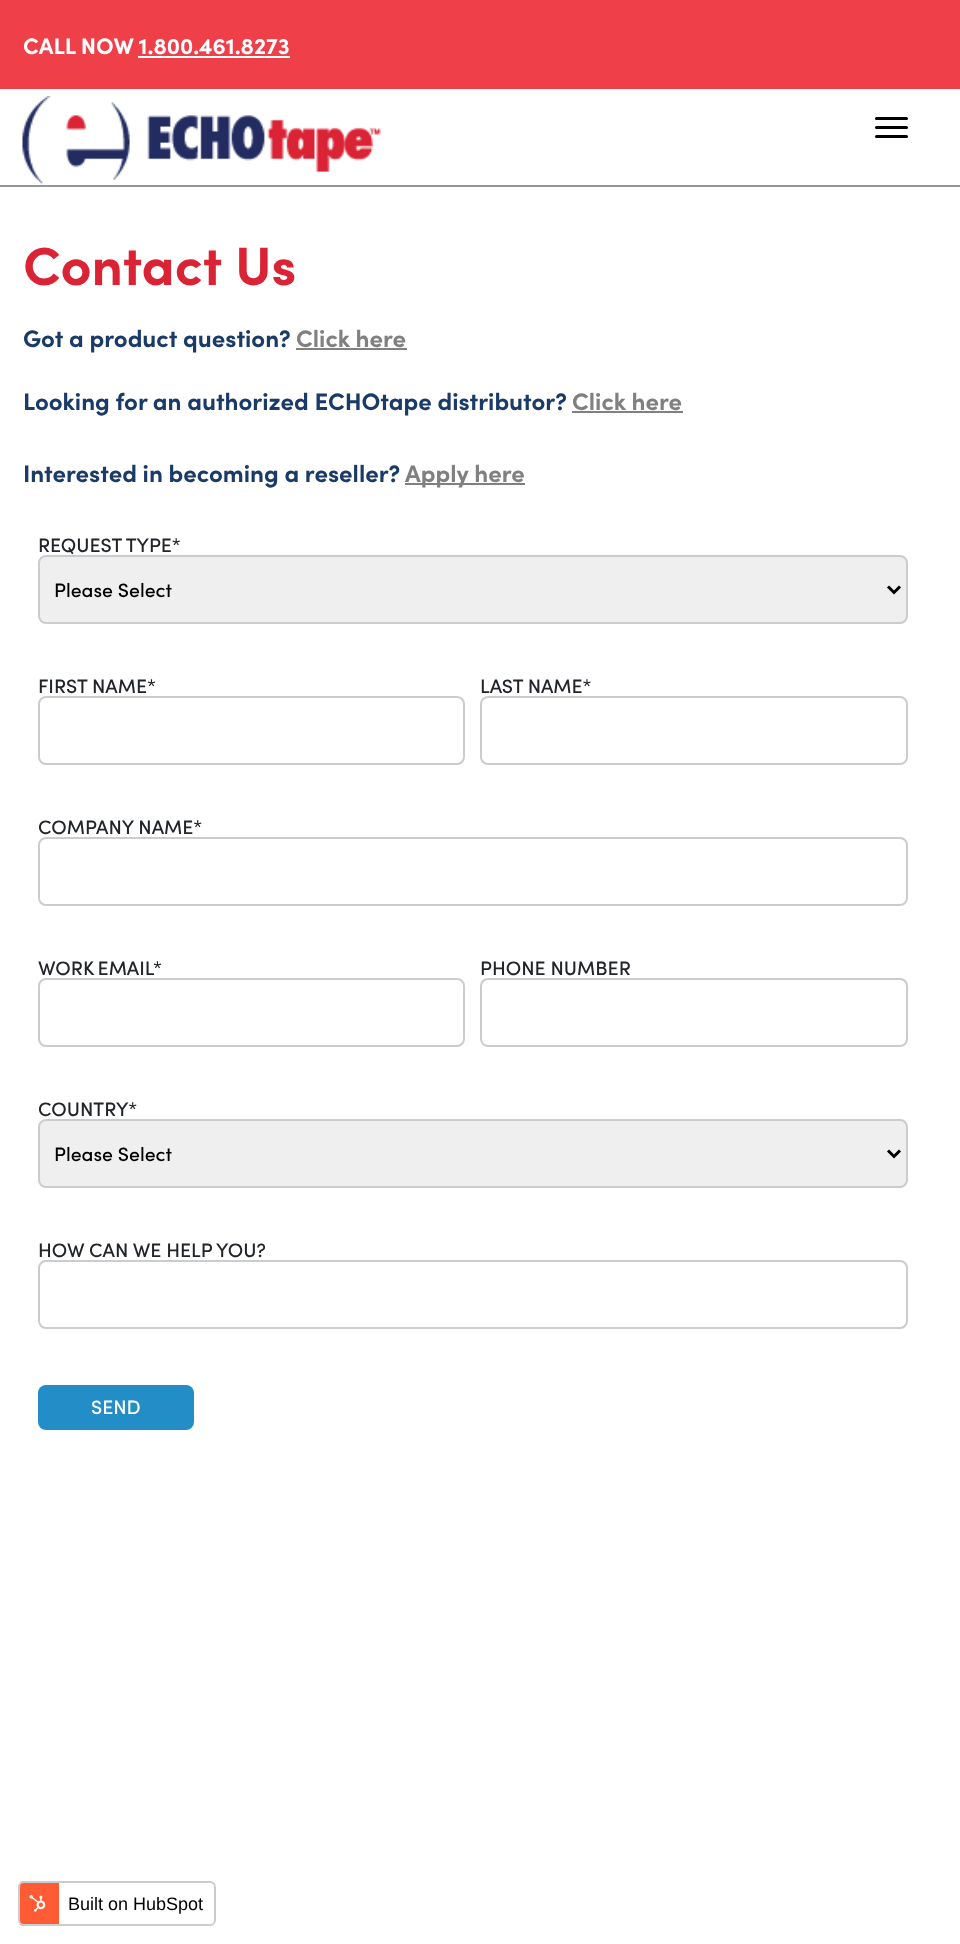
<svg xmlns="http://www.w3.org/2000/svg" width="960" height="1944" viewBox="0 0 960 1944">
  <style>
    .t1 { font: bold 22.5px Sofia; fill: #fff; }
    .t2 { font: bold 54px Sofia; fill: #da2435; }
    .t3 { font: bold 24px Sofia; fill: #1a3a67; }
    .t4 { font: bold 24px Sofia; fill: #808080; }
    .t5 { font: 500 19.5px Sofia; fill: #212529; }
    .t6 { font: 500 19.5px Sofia; fill: #000; }
    .t7 { font: 500 19.5px Sofia; fill: #fff; }
    .t8 { font: 18px Liberation Sans; fill: #000; }
  </style>
  <defs>
    <clipPath id="clip1"><rect x="18" y="1881" width="198" height="45" rx="6"/></clipPath>
  </defs>
  <rect width="100%" height="100%" fill="#fff"/>
  <rect x="0" y="185" width="960" height="2" fill="#939597"/>
  <rect x="0" y="0" width="960" height="89" fill="#ef4049"/>
  <text x="23" y="54" class="t1">CALL NOW 1.800.461.8273</text>
  <rect x="138" y="56" width="152" height="2" fill="#fff"/>
  <image x="22" y="96" width="359" height="89" href="images/1.png"/>
  <rect x="875" y="126" width="33" height="3" rx="1.5" fill="#000"/>
  <rect x="875" y="117" width="33" height="3" rx="1.5" fill="#000"/>
  <rect x="875" y="135" width="33" height="3" rx="1.5" fill="#000"/>
  <text x="23" y="285" class="t2">Contact Us</text>
  <text x="23" y="347" class="t3">Got a product question?</text>
  <text x="296" y="347" class="t4">Click here</text>
  <rect x="296" y="348" width="111" height="2" fill="#808080"/>
  <text x="23" y="410" class="t3">Looking for an authorized ECHOtape distributor?</text>
  <text x="572" y="410" class="t4">Click here</text>
  <rect x="572" y="411" width="111" height="2" fill="#808080"/>
  <text x="23" y="482" class="t3">Interested in becoming a reseller?</text>
  <rect x="405" y="483" width="120" height="2" fill="#808080"/>
  <text x="405" y="482" class="t4">Apply here</text>
  <text x="38" y="552" class="t5">REQUEST TYPE*</text>
  <rect x="39" y="556" width="868" height="67" rx="7" fill="#efefef" stroke="#ccc" stroke-width="2"/>
  <path d="M888 586.5L894 592.5L900 586.5" fill="none" stroke="#000" stroke-width="3"/>
  <text x="54" y="597" class="t6">Please Select</text>
  <text x="38" y="693" class="t5">FIRST NAME*</text>
  <rect x="39" y="697" width="425" height="67" rx="7" fill="none" stroke="#ccc" stroke-width="2"/>
  <text x="480" y="693" class="t5">LAST NAME*</text>
  <rect x="481" y="697" width="426" height="67" rx="7" fill="none" stroke="#ccc" stroke-width="2"/>
  <text x="38" y="834" class="t5">COMPANY NAME*</text>
  <rect x="39" y="838" width="868" height="67" rx="7" fill="none" stroke="#ccc" stroke-width="2"/>
  <text x="38" y="975" word-spacing="-1" class="t5">WORK EMAIL</text>
  <text x="153" y="975" class="t5">*</text>
  <rect x="39" y="979" width="425" height="67" rx="7" fill="none" stroke="#ccc" stroke-width="2"/>
  <text x="480" y="975" class="t5">PHONE NUMBER</text>
  <rect x="481" y="979" width="426" height="67" rx="7" fill="none" stroke="#ccc" stroke-width="2"/>
  <text x="38" y="1116" class="t5">COUNTRY*</text>
  <rect x="39" y="1120" width="868" height="67" rx="7" fill="#efefef" stroke="#ccc" stroke-width="2"/>
  <path d="M888 1150.5L894 1156.5L900 1150.5" fill="none" stroke="#000" stroke-width="3"/>
  <text x="54" y="1161" class="t6">Please Select</text>
  <text x="38" y="1257" class="t5">HOW CAN WE HELP YOU?</text>
  <rect x="39" y="1261" width="868" height="67" rx="7" fill="none" stroke="#ccc" stroke-width="2"/>
  <rect x="38" y="1385" width="156" height="45" rx="8" fill="#238dc7"/>
  <text x="91" y="1414" class="t7">SEND</text>
  <g clip-path="url(#clip1)">
    <rect x="20" y="1881" width="39" height="45" fill="#ff5c35"/>
  </g>
  <rect x="19" y="1882" width="196" height="43" rx="5" fill="none" stroke="#ccc" stroke-width="2"/>
  <image x="29" y="1895" width="17" height="17" href="images/2.png"/>
  <text x="68" y="1910" class="t8">Built on HubSpot</text>
</svg>
